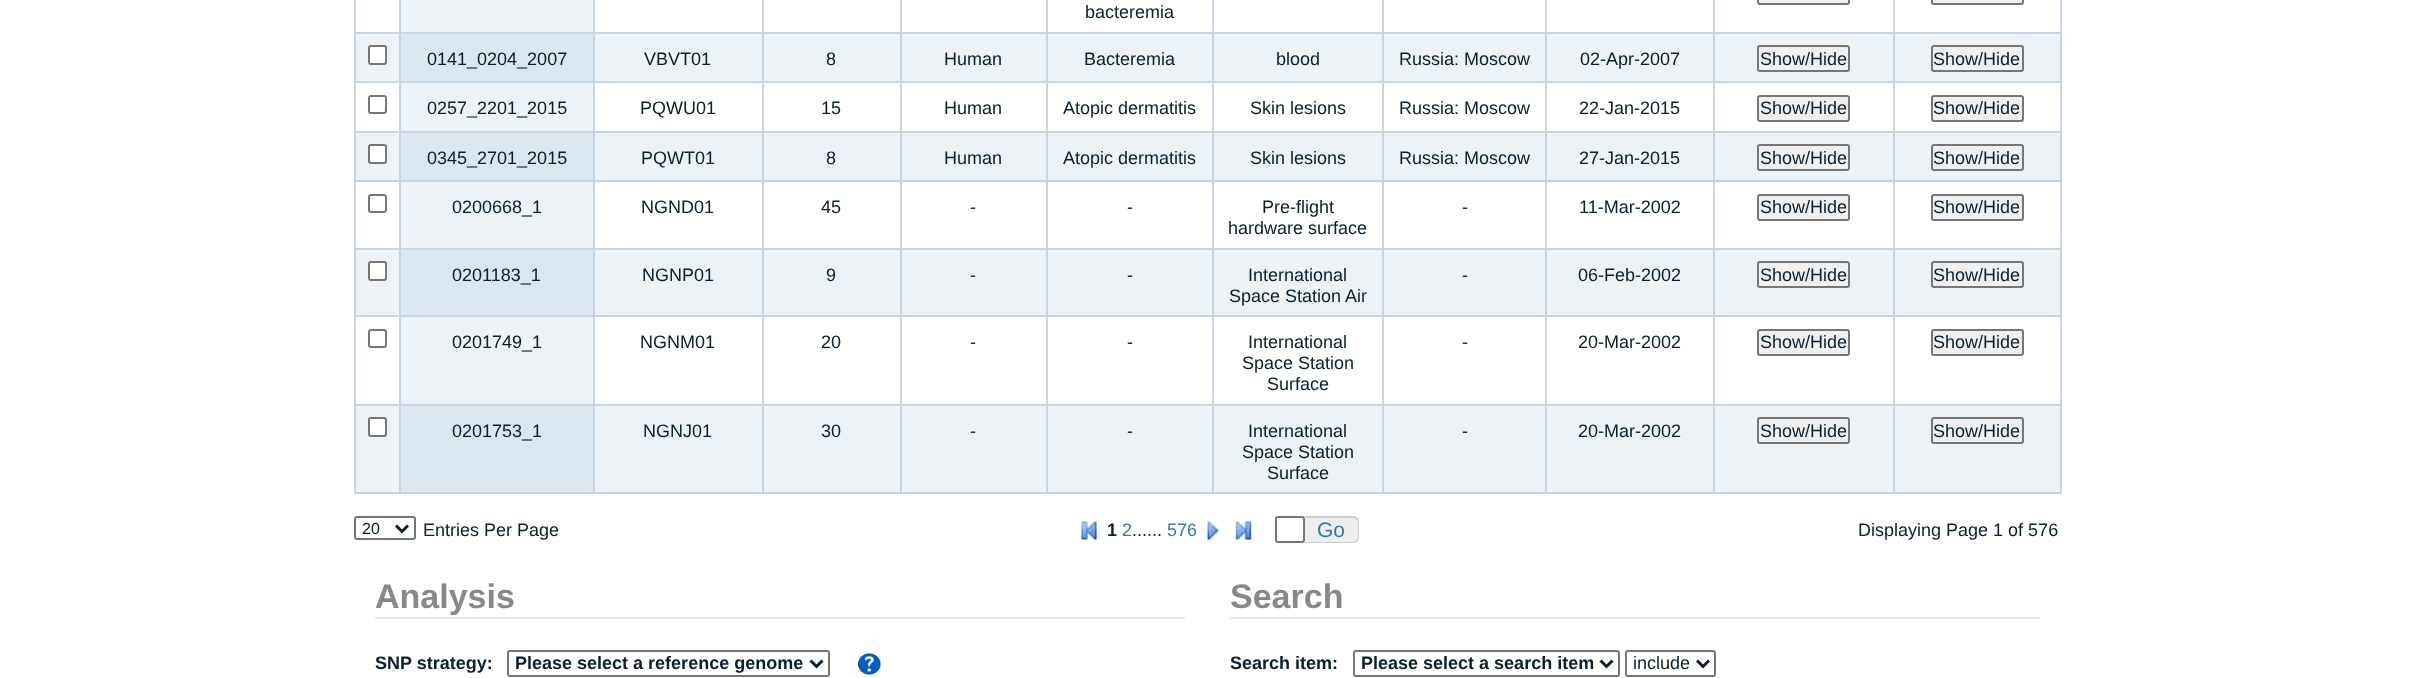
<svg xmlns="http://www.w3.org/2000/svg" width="2414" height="678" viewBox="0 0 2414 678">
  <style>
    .t1 { font: 18px Liberation Sans; fill: #091f30; }
    .t2 { font: 16px Liberation Sans; fill: #091f30; }
    .t3 { font: bold 18px Liberation Sans; fill: #091f30; }
    .t4 { font: 18px Liberation Sans; fill: #337ab7; }
    .t5 { font: 21px Liberation Sans; fill: #337ab7; }
    .t6 { font: bold 34px Liberation Sans; fill: #888; }
  </style>
  <rect width="100%" height="100%" fill="#fff"/>
  <rect x="354" y="0" width="2" height="494" fill="#c6d5e1"/>
  <rect x="2060" y="0" width="2" height="494" fill="#c6d5e1"/>
  <rect x="1893" y="492" width="168" height="2" fill="#c6d5e1"/>
  <rect x="1893" y="404" width="2" height="90" fill="#c6d5e1"/>
  <rect x="1893" y="404" width="168" height="2" fill="#c6d5e1"/>
  <rect x="1893" y="315" width="2" height="90" fill="#c6d5e1"/>
  <rect x="1893" y="315" width="168" height="2" fill="#c6d5e1"/>
  <rect x="1893" y="248" width="2" height="69" fill="#c6d5e1"/>
  <rect x="1893" y="248" width="168" height="2" fill="#c6d5e1"/>
  <rect x="1893" y="180" width="2" height="69" fill="#c6d5e1"/>
  <rect x="1893" y="180" width="168" height="2" fill="#c6d5e1"/>
  <rect x="1893" y="131" width="2" height="51" fill="#c6d5e1"/>
  <rect x="1893" y="131" width="168" height="2" fill="#c6d5e1"/>
  <rect x="1893" y="81" width="2" height="51" fill="#c6d5e1"/>
  <rect x="1893" y="81" width="168" height="2" fill="#c6d5e1"/>
  <rect x="1893" y="32" width="2" height="51" fill="#c6d5e1"/>
  <rect x="1893" y="32" width="168" height="2" fill="#c6d5e1"/>
  <rect x="1893" y="0" width="2" height="33" fill="#c6d5e1"/>
  <rect x="1713" y="492" width="182" height="2" fill="#c6d5e1"/>
  <rect x="1713" y="404" width="2" height="90" fill="#c6d5e1"/>
  <rect x="1713" y="404" width="182" height="2" fill="#c6d5e1"/>
  <rect x="1713" y="315" width="2" height="90" fill="#c6d5e1"/>
  <rect x="1713" y="315" width="182" height="2" fill="#c6d5e1"/>
  <rect x="1713" y="248" width="2" height="69" fill="#c6d5e1"/>
  <rect x="1713" y="248" width="182" height="2" fill="#c6d5e1"/>
  <rect x="1713" y="180" width="2" height="69" fill="#c6d5e1"/>
  <rect x="1713" y="180" width="182" height="2" fill="#c6d5e1"/>
  <rect x="1713" y="131" width="2" height="51" fill="#c6d5e1"/>
  <rect x="1713" y="131" width="182" height="2" fill="#c6d5e1"/>
  <rect x="1713" y="81" width="2" height="51" fill="#c6d5e1"/>
  <rect x="1713" y="81" width="182" height="2" fill="#c6d5e1"/>
  <rect x="1713" y="32" width="2" height="51" fill="#c6d5e1"/>
  <rect x="1713" y="32" width="182" height="2" fill="#c6d5e1"/>
  <rect x="1713" y="0" width="2" height="33" fill="#c6d5e1"/>
  <rect x="1545" y="492" width="170" height="2" fill="#c6d5e1"/>
  <rect x="1545" y="404" width="2" height="90" fill="#c6d5e1"/>
  <rect x="1545" y="404" width="170" height="2" fill="#c6d5e1"/>
  <rect x="1545" y="315" width="2" height="90" fill="#c6d5e1"/>
  <rect x="1545" y="315" width="170" height="2" fill="#c6d5e1"/>
  <rect x="1545" y="248" width="2" height="69" fill="#c6d5e1"/>
  <rect x="1545" y="248" width="170" height="2" fill="#c6d5e1"/>
  <rect x="1545" y="180" width="2" height="69" fill="#c6d5e1"/>
  <rect x="1545" y="180" width="170" height="2" fill="#c6d5e1"/>
  <rect x="1545" y="131" width="2" height="51" fill="#c6d5e1"/>
  <rect x="1545" y="131" width="170" height="2" fill="#c6d5e1"/>
  <rect x="1545" y="81" width="2" height="51" fill="#c6d5e1"/>
  <rect x="1545" y="81" width="170" height="2" fill="#c6d5e1"/>
  <rect x="1545" y="32" width="2" height="51" fill="#c6d5e1"/>
  <rect x="1545" y="32" width="170" height="2" fill="#c6d5e1"/>
  <rect x="1545" y="0" width="2" height="33" fill="#c6d5e1"/>
  <rect x="1382" y="492" width="165" height="2" fill="#c6d5e1"/>
  <rect x="1382" y="404" width="2" height="90" fill="#c6d5e1"/>
  <rect x="1382" y="404" width="165" height="2" fill="#c6d5e1"/>
  <rect x="1382" y="315" width="2" height="90" fill="#c6d5e1"/>
  <rect x="1382" y="315" width="165" height="2" fill="#c6d5e1"/>
  <rect x="1382" y="248" width="2" height="69" fill="#c6d5e1"/>
  <rect x="1382" y="248" width="165" height="2" fill="#c6d5e1"/>
  <rect x="1382" y="180" width="2" height="69" fill="#c6d5e1"/>
  <rect x="1382" y="180" width="165" height="2" fill="#c6d5e1"/>
  <rect x="1382" y="131" width="2" height="51" fill="#c6d5e1"/>
  <rect x="1382" y="131" width="165" height="2" fill="#c6d5e1"/>
  <rect x="1382" y="81" width="2" height="51" fill="#c6d5e1"/>
  <rect x="1382" y="81" width="165" height="2" fill="#c6d5e1"/>
  <rect x="1382" y="32" width="2" height="51" fill="#c6d5e1"/>
  <rect x="1382" y="32" width="165" height="2" fill="#c6d5e1"/>
  <rect x="1382" y="0" width="2" height="33" fill="#c6d5e1"/>
  <rect x="1212" y="492" width="171" height="2" fill="#c6d5e1"/>
  <rect x="1212" y="404" width="2" height="90" fill="#c6d5e1"/>
  <rect x="1212" y="404" width="171" height="2" fill="#c6d5e1"/>
  <rect x="1212" y="315" width="2" height="90" fill="#c6d5e1"/>
  <rect x="1212" y="315" width="171" height="2" fill="#c6d5e1"/>
  <rect x="1212" y="248" width="2" height="69" fill="#c6d5e1"/>
  <rect x="1212" y="248" width="171" height="2" fill="#c6d5e1"/>
  <rect x="1212" y="180" width="2" height="69" fill="#c6d5e1"/>
  <rect x="1212" y="180" width="171" height="2" fill="#c6d5e1"/>
  <rect x="1212" y="131" width="2" height="51" fill="#c6d5e1"/>
  <rect x="1212" y="131" width="171" height="2" fill="#c6d5e1"/>
  <rect x="1212" y="81" width="2" height="51" fill="#c6d5e1"/>
  <rect x="1212" y="81" width="171" height="2" fill="#c6d5e1"/>
  <rect x="1212" y="32" width="2" height="51" fill="#c6d5e1"/>
  <rect x="1212" y="32" width="171" height="2" fill="#c6d5e1"/>
  <rect x="1212" y="0" width="2" height="33" fill="#c6d5e1"/>
  <rect x="1046" y="492" width="168" height="2" fill="#c6d5e1"/>
  <rect x="1046" y="404" width="2" height="90" fill="#c6d5e1"/>
  <rect x="1046" y="404" width="168" height="2" fill="#c6d5e1"/>
  <rect x="1046" y="315" width="2" height="90" fill="#c6d5e1"/>
  <rect x="1046" y="315" width="168" height="2" fill="#c6d5e1"/>
  <rect x="1046" y="248" width="2" height="69" fill="#c6d5e1"/>
  <rect x="1046" y="248" width="168" height="2" fill="#c6d5e1"/>
  <rect x="1046" y="180" width="2" height="69" fill="#c6d5e1"/>
  <rect x="1046" y="180" width="168" height="2" fill="#c6d5e1"/>
  <rect x="1046" y="131" width="2" height="51" fill="#c6d5e1"/>
  <rect x="1046" y="131" width="168" height="2" fill="#c6d5e1"/>
  <rect x="1046" y="81" width="2" height="51" fill="#c6d5e1"/>
  <rect x="1046" y="81" width="168" height="2" fill="#c6d5e1"/>
  <rect x="1046" y="32" width="2" height="51" fill="#c6d5e1"/>
  <rect x="1046" y="32" width="168" height="2" fill="#c6d5e1"/>
  <rect x="1046" y="0" width="2" height="33" fill="#c6d5e1"/>
  <rect x="900" y="492" width="147" height="2" fill="#c6d5e1"/>
  <rect x="900" y="404" width="2" height="90" fill="#c6d5e1"/>
  <rect x="900" y="404" width="147" height="2" fill="#c6d5e1"/>
  <rect x="900" y="315" width="2" height="90" fill="#c6d5e1"/>
  <rect x="900" y="315" width="147" height="2" fill="#c6d5e1"/>
  <rect x="900" y="248" width="2" height="69" fill="#c6d5e1"/>
  <rect x="900" y="248" width="147" height="2" fill="#c6d5e1"/>
  <rect x="900" y="180" width="2" height="69" fill="#c6d5e1"/>
  <rect x="900" y="180" width="147" height="2" fill="#c6d5e1"/>
  <rect x="900" y="131" width="2" height="51" fill="#c6d5e1"/>
  <rect x="900" y="131" width="147" height="2" fill="#c6d5e1"/>
  <rect x="900" y="81" width="2" height="51" fill="#c6d5e1"/>
  <rect x="900" y="81" width="147" height="2" fill="#c6d5e1"/>
  <rect x="900" y="32" width="2" height="51" fill="#c6d5e1"/>
  <rect x="900" y="32" width="147" height="2" fill="#c6d5e1"/>
  <rect x="900" y="0" width="2" height="33" fill="#c6d5e1"/>
  <rect x="762" y="492" width="140" height="2" fill="#c6d5e1"/>
  <rect x="762" y="404" width="2" height="90" fill="#c6d5e1"/>
  <rect x="762" y="404" width="140" height="2" fill="#c6d5e1"/>
  <rect x="762" y="315" width="2" height="90" fill="#c6d5e1"/>
  <rect x="762" y="315" width="140" height="2" fill="#c6d5e1"/>
  <rect x="762" y="248" width="2" height="69" fill="#c6d5e1"/>
  <rect x="762" y="248" width="140" height="2" fill="#c6d5e1"/>
  <rect x="762" y="180" width="2" height="69" fill="#c6d5e1"/>
  <rect x="762" y="180" width="140" height="2" fill="#c6d5e1"/>
  <rect x="762" y="131" width="2" height="51" fill="#c6d5e1"/>
  <rect x="762" y="131" width="140" height="2" fill="#c6d5e1"/>
  <rect x="762" y="81" width="2" height="51" fill="#c6d5e1"/>
  <rect x="762" y="81" width="140" height="2" fill="#c6d5e1"/>
  <rect x="762" y="32" width="2" height="51" fill="#c6d5e1"/>
  <rect x="762" y="32" width="140" height="2" fill="#c6d5e1"/>
  <rect x="762" y="0" width="2" height="33" fill="#c6d5e1"/>
  <rect x="593" y="492" width="171" height="2" fill="#c6d5e1"/>
  <rect x="593" y="404" width="2" height="90" fill="#c6d5e1"/>
  <rect x="593" y="404" width="171" height="2" fill="#c6d5e1"/>
  <rect x="593" y="315" width="2" height="90" fill="#c6d5e1"/>
  <rect x="593" y="315" width="171" height="2" fill="#c6d5e1"/>
  <rect x="593" y="248" width="2" height="69" fill="#c6d5e1"/>
  <rect x="593" y="248" width="171" height="2" fill="#c6d5e1"/>
  <rect x="593" y="180" width="2" height="69" fill="#c6d5e1"/>
  <rect x="593" y="180" width="171" height="2" fill="#c6d5e1"/>
  <rect x="593" y="131" width="2" height="51" fill="#c6d5e1"/>
  <rect x="593" y="131" width="171" height="2" fill="#c6d5e1"/>
  <rect x="593" y="81" width="2" height="51" fill="#c6d5e1"/>
  <rect x="593" y="81" width="171" height="2" fill="#c6d5e1"/>
  <rect x="593" y="32" width="2" height="51" fill="#c6d5e1"/>
  <rect x="593" y="32" width="171" height="2" fill="#c6d5e1"/>
  <rect x="593" y="0" width="2" height="33" fill="#c6d5e1"/>
  <rect x="399" y="492" width="195" height="2" fill="#c6d5e1"/>
  <rect x="399" y="404" width="2" height="90" fill="#c6d5e1"/>
  <rect x="399" y="404" width="195" height="2" fill="#c6d5e1"/>
  <rect x="399" y="315" width="2" height="90" fill="#c6d5e1"/>
  <rect x="399" y="315" width="195" height="2" fill="#c6d5e1"/>
  <rect x="399" y="248" width="2" height="69" fill="#c6d5e1"/>
  <rect x="399" y="248" width="195" height="2" fill="#c6d5e1"/>
  <rect x="399" y="180" width="2" height="69" fill="#c6d5e1"/>
  <rect x="399" y="180" width="195" height="2" fill="#c6d5e1"/>
  <rect x="399" y="131" width="2" height="51" fill="#c6d5e1"/>
  <rect x="399" y="131" width="195" height="2" fill="#c6d5e1"/>
  <rect x="399" y="81" width="2" height="51" fill="#c6d5e1"/>
  <rect x="399" y="81" width="195" height="2" fill="#c6d5e1"/>
  <rect x="399" y="32" width="2" height="51" fill="#c6d5e1"/>
  <rect x="399" y="32" width="195" height="2" fill="#c6d5e1"/>
  <rect x="399" y="0" width="2" height="33" fill="#c6d5e1"/>
  <rect x="354" y="32" width="47" height="2" fill="#c6d5e1"/>
  <rect x="401" y="0" width="192" height="32" fill="#ecf2f6"/>
  <text x="1085" y="18" class="t1">bacteremia</text>
  <rect x="1758" y="-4" width="91" height="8" rx="2" fill="#efefef" stroke="#767676" stroke-width="2"/>
  <rect x="1932" y="-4" width="91" height="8" rx="2" fill="#efefef" stroke="#767676" stroke-width="2"/>
  <rect x="356" y="34" width="43" height="47" fill="#ecf2f6"/>
  <rect x="354" y="81" width="47" height="2" fill="#c6d5e1"/>
  <rect x="369" y="46" width="17" height="18" rx="2" fill="#fff" stroke="#767676" stroke-width="2"/>
  <rect x="401" y="34" width="192" height="47" fill="#dce6ee"/>
  <text x="427" y="65" class="t1">0141_0204_2007</text>
  <rect x="595" y="34" width="167" height="47" fill="#ecf2f6"/>
  <text x="644" y="65" class="t1">VBVT01</text>
  <rect x="764" y="34" width="136" height="47" fill="#ecf2f6"/>
  <text x="826" y="65" class="t1">8</text>
  <rect x="902" y="34" width="144" height="47" fill="#ecf2f6"/>
  <text x="944" y="65" class="t1">Human</text>
  <rect x="1048" y="34" width="164" height="47" fill="#ecf2f6"/>
  <text x="1084" y="65" class="t1">Bacteremia</text>
  <rect x="1214" y="34" width="168" height="47" fill="#ecf2f6"/>
  <text x="1276" y="65" class="t1">blood</text>
  <rect x="1384" y="34" width="161" height="47" fill="#ecf2f6"/>
  <text x="1399" y="65" class="t1">Russia: Moscow</text>
  <rect x="1547" y="34" width="166" height="47" fill="#ecf2f6"/>
  <text x="1580" y="65" class="t1">02-Apr-2007</text>
  <rect x="1715" y="34" width="178" height="47" fill="#ecf2f6"/>
  <rect x="1758" y="46" width="91" height="25" rx="2" fill="#efefef" stroke="#767676" stroke-width="2"/>
  <text x="1760" y="65" class="t1">Show/Hide</text>
  <rect x="1895" y="34" width="165" height="47" fill="#ecf2f6"/>
  <rect x="1932" y="46" width="91" height="25" rx="2" fill="#efefef" stroke="#767676" stroke-width="2"/>
  <text x="1933" y="65" class="t1">Show/Hide</text>
  <rect x="354" y="131" width="47" height="2" fill="#c6d5e1"/>
  <rect x="369" y="96" width="17" height="17" rx="2" fill="none" stroke="#767676" stroke-width="2"/>
  <rect x="401" y="83" width="192" height="48" fill="#ecf2f6"/>
  <text x="427" y="114" class="t1">0257_2201_2015</text>
  <text x="640" y="114" class="t1">PQWU01</text>
  <text x="821" y="114" class="t1">15</text>
  <text x="944" y="114" class="t1">Human</text>
  <text x="1063" y="114" class="t1">Atopic dermatitis</text>
  <text x="1250" y="114" class="t1">Skin lesions</text>
  <text x="1399" y="114" class="t1">Russia: Moscow</text>
  <text x="1579" y="114" class="t1">22-Jan-2015</text>
  <rect x="1758" y="96" width="91" height="25" rx="2" fill="#efefef" stroke="#767676" stroke-width="2"/>
  <text x="1760" y="114" class="t1">Show/Hide</text>
  <rect x="1932" y="96" width="91" height="25" rx="2" fill="#efefef" stroke="#767676" stroke-width="2"/>
  <text x="1933" y="114" class="t1">Show/Hide</text>
  <rect x="356" y="133" width="43" height="47" fill="#ecf2f6"/>
  <rect x="354" y="180" width="47" height="2" fill="#c6d5e1"/>
  <rect x="369" y="145" width="17" height="18" rx="2" fill="#fff" stroke="#767676" stroke-width="2"/>
  <rect x="401" y="133" width="192" height="47" fill="#dce6ee"/>
  <text x="427" y="164" class="t1">0345_2701_2015</text>
  <rect x="595" y="133" width="167" height="47" fill="#ecf2f6"/>
  <text x="641" y="164" class="t1">PQWT01</text>
  <rect x="764" y="133" width="136" height="47" fill="#ecf2f6"/>
  <text x="826" y="164" class="t1">8</text>
  <rect x="902" y="133" width="144" height="47" fill="#ecf2f6"/>
  <text x="944" y="164" class="t1">Human</text>
  <rect x="1048" y="133" width="164" height="47" fill="#ecf2f6"/>
  <text x="1063" y="164" class="t1">Atopic dermatitis</text>
  <rect x="1214" y="133" width="168" height="47" fill="#ecf2f6"/>
  <text x="1250" y="164" class="t1">Skin lesions</text>
  <rect x="1384" y="133" width="161" height="47" fill="#ecf2f6"/>
  <text x="1399" y="164" class="t1">Russia: Moscow</text>
  <rect x="1547" y="133" width="166" height="47" fill="#ecf2f6"/>
  <text x="1579" y="164" class="t1">27-Jan-2015</text>
  <rect x="1715" y="133" width="178" height="47" fill="#ecf2f6"/>
  <rect x="1758" y="145" width="91" height="25" rx="2" fill="#efefef" stroke="#767676" stroke-width="2"/>
  <text x="1760" y="164" class="t1">Show/Hide</text>
  <rect x="1895" y="133" width="165" height="47" fill="#ecf2f6"/>
  <rect x="1932" y="145" width="91" height="25" rx="2" fill="#efefef" stroke="#767676" stroke-width="2"/>
  <text x="1933" y="164" class="t1">Show/Hide</text>
  <rect x="354" y="248" width="47" height="2" fill="#c6d5e1"/>
  <rect x="369" y="195" width="17" height="17" rx="2" fill="none" stroke="#767676" stroke-width="2"/>
  <rect x="401" y="182" width="192" height="66" fill="#ecf2f6"/>
  <text x="452" y="213" class="t1">0200668_1</text>
  <text x="641" y="213" class="t1">NGND01</text>
  <text x="821" y="213" class="t1">45</text>
  <text x="970" y="213" class="t1">-</text>
  <text x="1127" y="213" class="t1">-</text>
  <text x="1262" y="213" class="t1">Pre-flight</text>
  <text x="1228" y="234" class="t1">hardware surface</text>
  <text x="1462" y="213" class="t1">-</text>
  <text x="1579" y="213" class="t1">11-Mar-2002</text>
  <rect x="1758" y="195" width="91" height="25" rx="2" fill="#efefef" stroke="#767676" stroke-width="2"/>
  <text x="1760" y="213" class="t1">Show/Hide</text>
  <rect x="1932" y="195" width="91" height="25" rx="2" fill="#efefef" stroke="#767676" stroke-width="2"/>
  <text x="1933" y="213" class="t1">Show/Hide</text>
  <rect x="356" y="250" width="43" height="65" fill="#ecf2f6"/>
  <rect x="354" y="315" width="47" height="2" fill="#c6d5e1"/>
  <rect x="369" y="262" width="17" height="18" rx="2" fill="#fff" stroke="#767676" stroke-width="2"/>
  <rect x="401" y="250" width="192" height="65" fill="#dce6ee"/>
  <text x="452" y="281" class="t1">0201183_1</text>
  <rect x="595" y="250" width="167" height="65" fill="#ecf2f6"/>
  <text x="642" y="281" class="t1">NGNP01</text>
  <rect x="764" y="250" width="136" height="65" fill="#ecf2f6"/>
  <text x="826" y="281" class="t1">9</text>
  <rect x="902" y="250" width="144" height="65" fill="#ecf2f6"/>
  <text x="970" y="281" class="t1">-</text>
  <rect x="1048" y="250" width="164" height="65" fill="#ecf2f6"/>
  <text x="1127" y="281" class="t1">-</text>
  <rect x="1214" y="250" width="168" height="65" fill="#ecf2f6"/>
  <text x="1248" y="281" class="t1">International</text>
  <text x="1229" y="302" class="t1">Space Station Air</text>
  <rect x="1384" y="250" width="161" height="65" fill="#ecf2f6"/>
  <text x="1462" y="281" class="t1">-</text>
  <rect x="1547" y="250" width="166" height="65" fill="#ecf2f6"/>
  <text x="1578" y="281" class="t1">06-Feb-2002</text>
  <rect x="1715" y="250" width="178" height="65" fill="#ecf2f6"/>
  <rect x="1758" y="262" width="91" height="25" rx="2" fill="#efefef" stroke="#767676" stroke-width="2"/>
  <text x="1760" y="281" class="t1">Show/Hide</text>
  <rect x="1895" y="250" width="165" height="65" fill="#ecf2f6"/>
  <rect x="1932" y="262" width="91" height="25" rx="2" fill="#efefef" stroke="#767676" stroke-width="2"/>
  <text x="1933" y="281" class="t1">Show/Hide</text>
  <rect x="354" y="404" width="47" height="2" fill="#c6d5e1"/>
  <rect x="369" y="330" width="17" height="17" rx="2" fill="none" stroke="#767676" stroke-width="2"/>
  <rect x="401" y="317" width="192" height="87" fill="#ecf2f6"/>
  <text x="452" y="348" class="t1">0201749_1</text>
  <text x="640" y="348" class="t1">NGNM01</text>
  <text x="821" y="348" class="t1">20</text>
  <text x="970" y="348" class="t1">-</text>
  <text x="1127" y="348" class="t1">-</text>
  <text x="1248" y="348" class="t1">International</text>
  <text x="1242" y="369" class="t1">Space Station</text>
  <text x="1267" y="390" class="t1">Surface</text>
  <text x="1462" y="348" class="t1">-</text>
  <text x="1578" y="348" class="t1">20-Mar-2002</text>
  <rect x="1758" y="330" width="91" height="25" rx="2" fill="#efefef" stroke="#767676" stroke-width="2"/>
  <text x="1760" y="348" class="t1">Show/Hide</text>
  <rect x="1932" y="330" width="91" height="25" rx="2" fill="#efefef" stroke="#767676" stroke-width="2"/>
  <text x="1933" y="348" class="t1">Show/Hide</text>
  <rect x="356" y="406" width="43" height="86" fill="#ecf2f6"/>
  <rect x="354" y="492" width="47" height="2" fill="#c6d5e1"/>
  <rect x="369" y="418" width="17" height="18" rx="2" fill="#fff" stroke="#767676" stroke-width="2"/>
  <rect x="401" y="406" width="192" height="86" fill="#dce6ee"/>
  <text x="452" y="437" class="t1">0201753_1</text>
  <rect x="595" y="406" width="167" height="86" fill="#ecf2f6"/>
  <text x="643" y="437" class="t1">NGNJ01</text>
  <rect x="764" y="406" width="136" height="86" fill="#ecf2f6"/>
  <text x="821" y="437" class="t1">30</text>
  <rect x="902" y="406" width="144" height="86" fill="#ecf2f6"/>
  <text x="970" y="437" class="t1">-</text>
  <rect x="1048" y="406" width="164" height="86" fill="#ecf2f6"/>
  <text x="1127" y="437" class="t1">-</text>
  <rect x="1214" y="406" width="168" height="86" fill="#ecf2f6"/>
  <text x="1248" y="437" class="t1">International</text>
  <text x="1242" y="458" class="t1">Space Station</text>
  <text x="1267" y="479" class="t1">Surface</text>
  <rect x="1384" y="406" width="161" height="86" fill="#ecf2f6"/>
  <text x="1462" y="437" class="t1">-</text>
  <rect x="1547" y="406" width="166" height="86" fill="#ecf2f6"/>
  <text x="1578" y="437" class="t1">20-Mar-2002</text>
  <rect x="1715" y="406" width="178" height="86" fill="#ecf2f6"/>
  <rect x="1758" y="418" width="91" height="25" rx="2" fill="#efefef" stroke="#767676" stroke-width="2"/>
  <text x="1760" y="437" class="t1">Show/Hide</text>
  <rect x="1895" y="406" width="165" height="86" fill="#ecf2f6"/>
  <rect x="1932" y="418" width="91" height="25" rx="2" fill="#efefef" stroke="#767676" stroke-width="2"/>
  <text x="1933" y="437" class="t1">Show/Hide</text>
  <rect x="355" y="517" width="60" height="22" rx="2" fill="none" stroke="#767676" stroke-width="2"/>
  <path d="M396 525.5L402 531.5L408 525.5" fill="none" stroke="#091f30" stroke-width="3"/>
  <text x="362" y="534" class="t2">20</text>
  <text x="423" y="536" class="t1">Entries Per Page</text>
  <image x="1081" y="521" width="16" height="19" href="images/1.png"/>
  <text x="1107" y="536" class="t3">1</text>
  <text x="1122" y="536" class="t4">2</text>
  <text x="1132" y="536" class="t1">......</text>
  <text x="1167" y="536" class="t4">576</text>
  <image x="1207" y="521" width="12" height="19" href="images/2.png"/>
  <image x="1235" y="521" width="17" height="19" href="images/3.png"/>
  <rect x="1276" y="517" width="28" height="25" rx="2" fill="none" stroke="#767676" stroke-width="2"/>
  <path d="M1305 516H1353C1356.5 516 1359 518.5 1359 522V537C1359 540.5 1356.5 543 1353 543H1305Z" fill="#eee"/>
  <path d="M1305 516H1353C1356 516 1359 519 1359 522V537C1359 540 1356 543 1353 543H1305ZM1305 518H1353C1355 518 1358 520 1358 522V537C1358 539 1355 542 1353 542H1305Z" fill="#ccc" fill-rule="evenodd"/>
  <text x="1317" y="537" class="t5">Go</text>
  <text x="1858" y="536" class="t1">Displaying Page 1 of 576</text>
  <rect x="375" y="617" width="810" height="2" fill="#e5e5e5"/>
  <text x="375" y="608" class="t6">Analysis</text>
  <text x="375" y="669" class="t3">SNP strategy:</text>
  <rect x="508" y="651" width="321" height="25" rx="2" fill="none" stroke="#767676" stroke-width="2"/>
  <path d="M810.5 660.5L816.5 666.5L822.5 660.5" fill="none" stroke="#091f30" stroke-width="3"/>
  <text x="515" y="669" class="t3">Please select a reference genome</text>
  <image x="858" y="653" width="23" height="22" href="images/4.png"/>
  <rect x="1230" y="617" width="810" height="2" fill="#e5e5e5"/>
  <text x="1230" y="608" class="t6">Search</text>
  <text x="1230" y="669" class="t3">Search item:</text>
  <rect x="1354" y="651" width="265" height="25" rx="2" fill="none" stroke="#767676" stroke-width="2"/>
  <path d="M1600.5 660.5L1606.5 666.5L1612.5 660.5" fill="none" stroke="#091f30" stroke-width="3"/>
  <text x="1361" y="669" class="t3">Please select a search item</text>
  <rect x="1626" y="651" width="89" height="25" rx="2" fill="none" stroke="#767676" stroke-width="2"/>
  <path d="M1697 660.5L1703 666.5L1709 660.5" fill="none" stroke="#091f30" stroke-width="3"/>
  <text x="1633" y="669" class="t1">include</text>
</svg>
